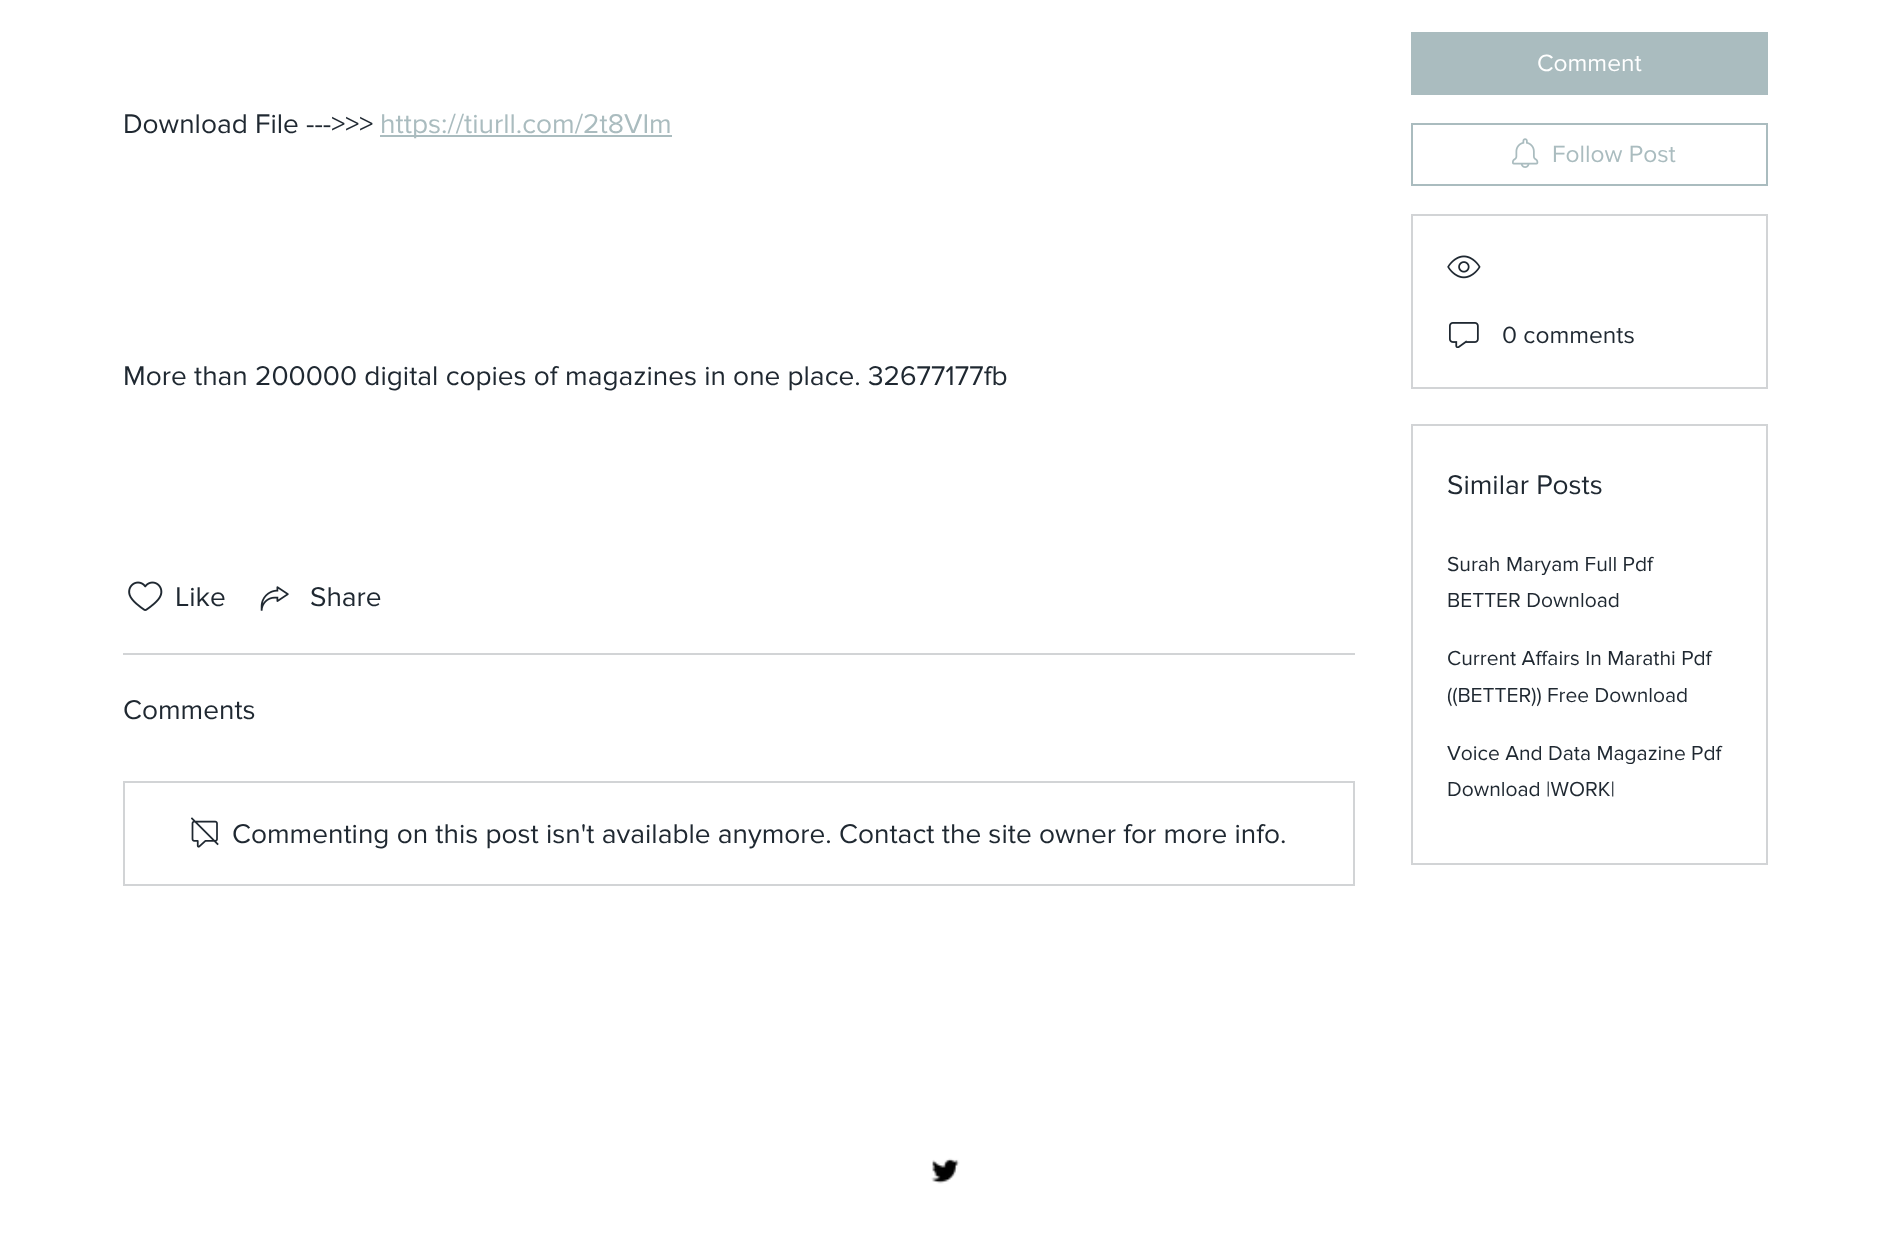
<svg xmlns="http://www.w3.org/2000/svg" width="1889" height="1254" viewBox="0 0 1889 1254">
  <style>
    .t1 { font: 28px 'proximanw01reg'; fill: #1f2831; }
    .t2 { font: 28px 'proximanw01reg'; fill: #aabcbf; }
    .t3 { font: 24.5px 'proximanw01reg'; fill: #fff; }
    .t4 { font: 24.5px 'proximanw01reg'; fill: #aabcbf; }
    .t5 { font: 24.5px 'proximanw01reg'; fill: #1f2831; }
    .t6 { font: 21px 'proximanw01reg'; fill: #1f2831; }
  </style>
  <rect width="100%" height="100%" fill="#fff"/>
  <text x="123" y="133" class="t1">Download File ---&gt;&gt;&gt;</text>
  <rect x="380" y="135" width="292" height="2" fill="#aabcbf"/>
  <text x="380" y="133" class="t2">https://tiurll.com/2t8VIm</text>
  <text x="123" y="385" class="t1">More than 200000 digital copies of magazines in one place. 32677177fb</text>
  <image x="128" y="581" width="35" height="30" href="images/1.png"/>
  <text x="175" y="606" class="t1">Like</text>
  <image x="260" y="586" width="29" height="25" href="images/2.png"/>
  <text x="310" y="606" class="t1">Share</text>
  <rect x="123" y="653" width="1232" height="2" fill="#d2d4d6"/>
  <text x="123" y="719" class="t1">Comments</text>
  <rect x="124" y="782" width="1230" height="103" fill="none" stroke="#d2d4d6" stroke-width="2"/>
  <image x="191" y="817" width="28" height="31" href="images/3.png"/>
  <text x="232" y="843" class="t1">Commenting on this post isn't available anymore. Contact the site owner for more info.</text>
  <rect x="1411" y="32" width="357" height="63" fill="#aabcbf"/>
  <text x="1537" y="71" class="t3">Comment</text>
  <rect x="1412" y="124" width="355" height="61" fill="none" stroke="#aabcbf" stroke-width="2"/>
  <image x="1512" y="138" width="27" height="30" href="images/4.png"/>
  <text x="1552" y="162" class="t4">Follow Post</text>
  <rect x="1412" y="215" width="355" height="173" fill="none" stroke="#d2d4d6" stroke-width="2"/>
  <image x="1447" y="255" width="34" height="24" href="images/5.png"/>
  <image x="1449" y="322" width="30" height="26" href="images/6.png"/>
  <text x="1502" y="343" class="t5">0 comments</text>
  <rect x="1412" y="425" width="355" height="439" fill="none" stroke="#d2d4d6" stroke-width="2"/>
  <text x="1447" y="494" class="t1">Similar Posts</text>
  <text x="1447" y="571" class="t6">Surah Maryam Full Pdf</text>
  <text x="1447" y="607" class="t6">BETTER Download</text>
  <text x="1447" y="665" class="t6">Current Affairs In Marathi Pdf</text>
  <text x="1447" y="702" class="t6">((BETTER)) Free Download</text>
  <text x="1447" y="760" class="t6">Voice And Data Magazine Pdf</text>
  <text x="1447" y="796" class="t6">Download |WORK|</text>
  <image x="931" y="1158" width="29" height="26" href="images/7.png"/>
</svg>
